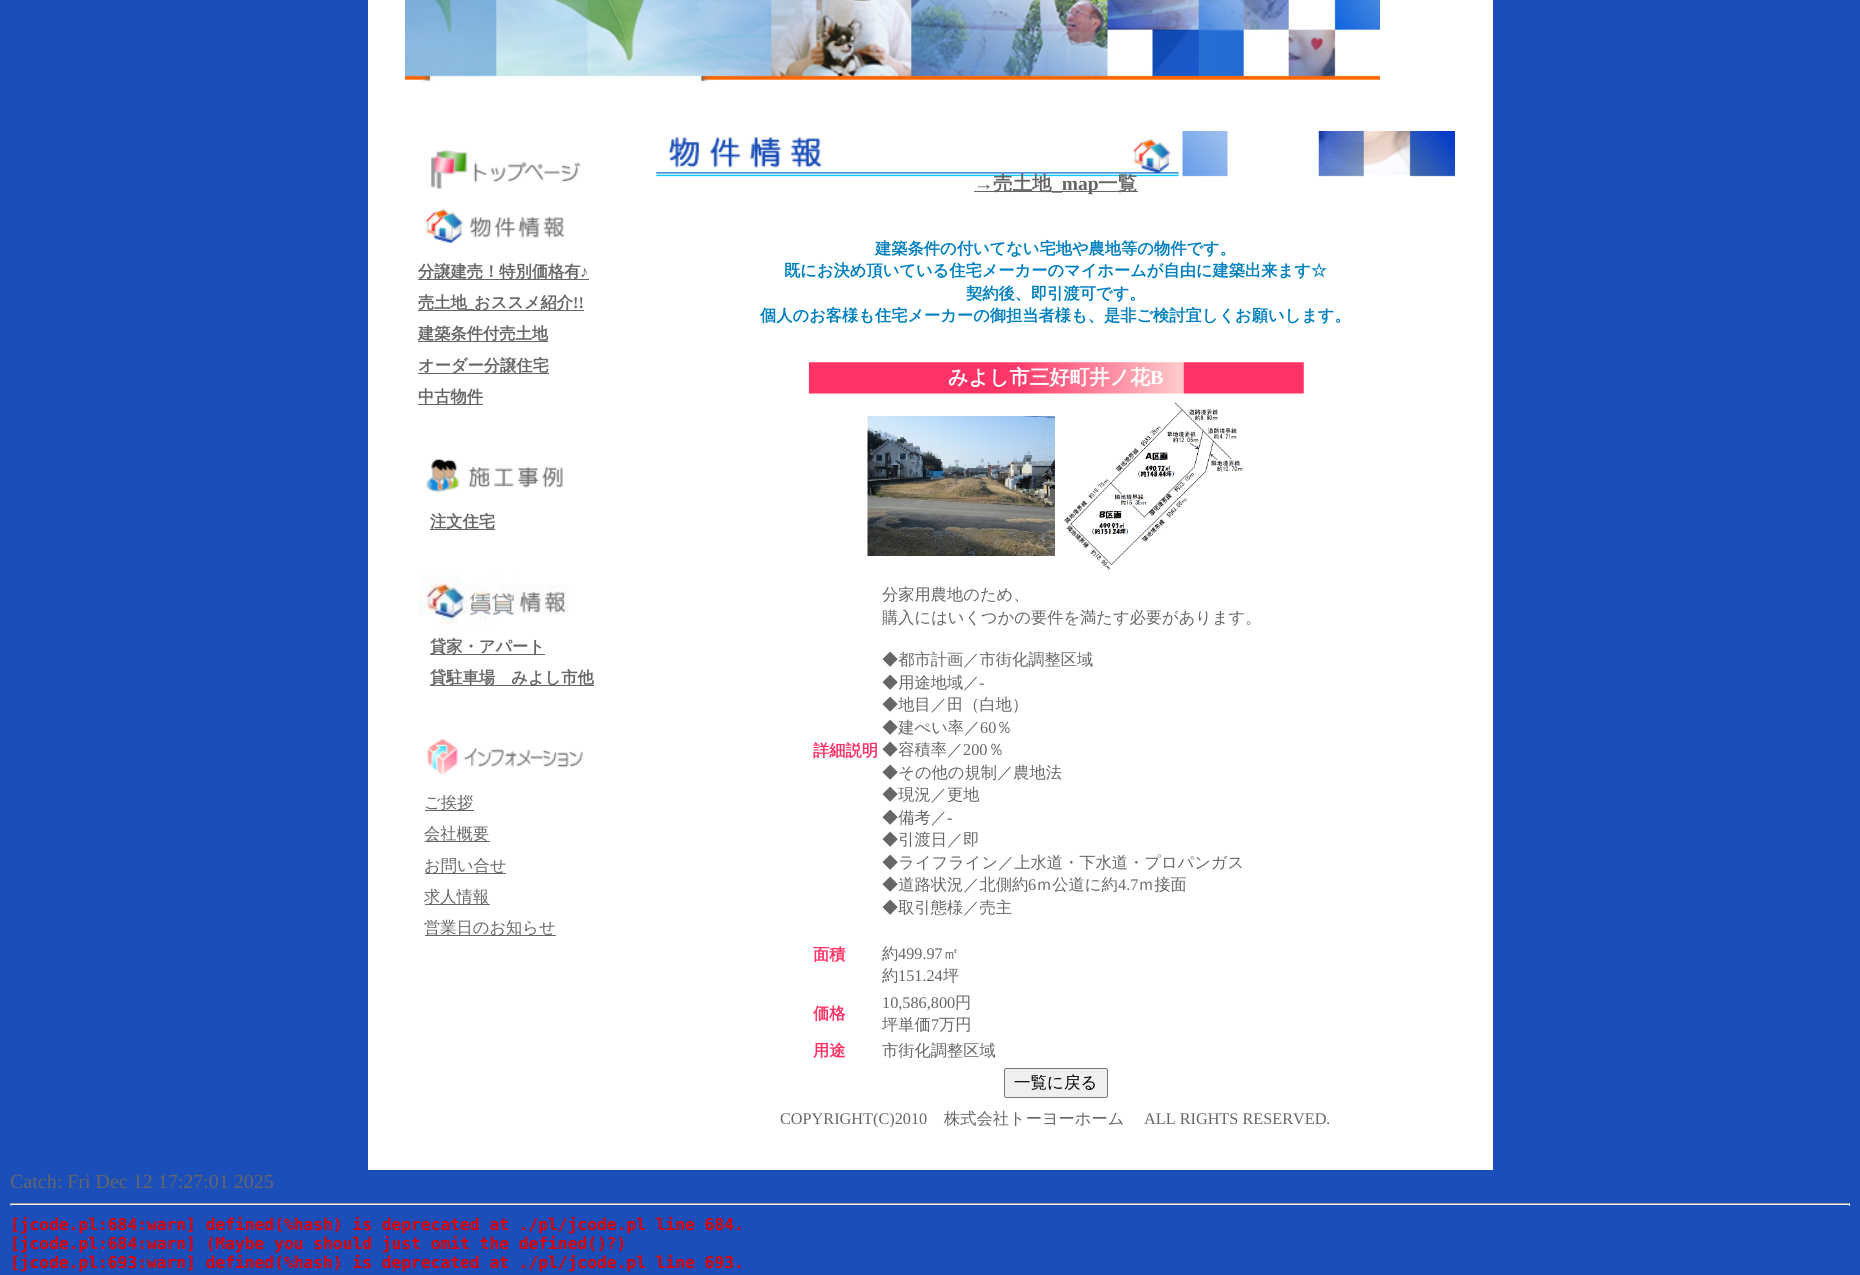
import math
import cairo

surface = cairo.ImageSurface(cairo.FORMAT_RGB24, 1860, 1275)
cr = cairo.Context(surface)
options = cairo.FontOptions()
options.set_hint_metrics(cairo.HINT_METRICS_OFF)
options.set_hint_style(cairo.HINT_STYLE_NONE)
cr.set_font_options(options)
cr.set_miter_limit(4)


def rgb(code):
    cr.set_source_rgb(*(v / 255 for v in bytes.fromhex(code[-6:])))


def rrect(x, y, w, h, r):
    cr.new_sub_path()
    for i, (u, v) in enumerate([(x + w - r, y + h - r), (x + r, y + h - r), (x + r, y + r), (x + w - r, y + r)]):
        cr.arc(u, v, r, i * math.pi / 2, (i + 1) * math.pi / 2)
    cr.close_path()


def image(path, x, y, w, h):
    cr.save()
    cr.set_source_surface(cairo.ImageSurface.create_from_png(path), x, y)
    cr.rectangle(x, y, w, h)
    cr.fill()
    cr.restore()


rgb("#1b4eb8")
cr.paint()
rgb("#ffffff")
cr.rectangle(368, 0, 1125, 1170)
cr.fill()
image("img/1.png", 405, 0, 975, 81)
image("img/2.png", 431, 149, 150, 40)
image("img/3.png", 426, 208, 138, 36)
for x, y, w, h, color in [
    (418, 279, 171, 1, "#666666"),
    (418, 310, 166, 1, "#666666"),
    (418, 341, 130, 1, "#666666"),
    (418, 373, 131, 1, "#666666"),
    (418, 404, 65, 1, "#666666"),
]:
    rgb(color)
    cr.rectangle(x, y, w, h)
    cr.fill()
image("img/4.png", 426, 459, 137, 34)
cr.rectangle(430, 529, 65, 1)
cr.fill()
image("img/5.png", 418, 575, 151, 50)
cr.rectangle(430, 654, 115, 1)
cr.fill()
cr.rectangle(430, 685, 164, 1)
cr.fill()
image("img/6.png", 427, 738, 156, 38)
for x, y, w, h, color in [
    (425, 810, 49, 1, "#666666"),
    (425, 841, 65, 1, "#666666"),
    (425, 873, 81, 1, "#666666"),
    (425, 904, 65, 1, "#666666"),
    (425, 935, 131, 1, "#666666"),
]:
    rgb(color)
    cr.rectangle(x, y, w, h)
    cr.fill()
image("img/7.png", 656, 131, 799, 46)
cr.rectangle(974, 191, 164, 1)
cr.fill()
image("img/8.png", 808, 362, 496, 32)
image("img/9.png", 867, 416, 188, 140)
image("img/10.png", 1064, 402, 179, 169)
rgb("#efefef")
rrect(1004.5, 1068.5, 103, 29, 2)
cr.fill_preserve()
rgb("#767676")
cr.set_line_width(1)
cr.stroke()
for x, y, w, h, color in [
    (10, 1203, 1840, 1, "#9f9f9f"),
    (1849, 1203, 1, 3, "#eeeeee"),
    (10, 1204, 1840, 1, "#eeeeee"),
    (10, 1203, 1, 3, "#9f9f9f"),
]:
    rgb(color)
    cr.rectangle(x, y, w, h)
    cr.fill()
cr.select_font_face("WenQuanYi Zen Hei", cairo.FONT_SLANT_NORMAL, cairo.FONT_WEIGHT_BOLD)
cr.set_font_size(16.25)
rgb("#666666")
cr.move_to(418, 277)
cr.show_text("分譲建売！特別価格有")
cr.select_font_face("Liberation Serif", cairo.FONT_SLANT_NORMAL, cairo.FONT_WEIGHT_BOLD)
cr.move_to(580, 277)
cr.show_text("♪")
cr.select_font_face("WenQuanYi Zen Hei", cairo.FONT_SLANT_NORMAL, cairo.FONT_WEIGHT_BOLD)
cr.move_to(418, 308)
cr.show_text("売土地")
cr.move_to(474, 308)
cr.show_text("おススメ紹介")
cr.select_font_face("Liberation Serif", cairo.FONT_SLANT_NORMAL, cairo.FONT_WEIGHT_BOLD)
cr.move_to(573, 308)
cr.show_text("!!")
cr.move_to(466, 308)
cr.show_text("_")
cr.select_font_face("WenQuanYi Zen Hei", cairo.FONT_SLANT_NORMAL, cairo.FONT_WEIGHT_BOLD)
for x, y, s in [
    (418, 339, "建築条件付売土地"),
    (418, 371, "オーダー分譲住宅"),
    (418, 402, "中古物件"),
    (430, 527, "注文住宅"),
    (430, 652, "貸家・アパート"),
    (430, 683, "貸駐車場　みよし市他"),
]:
    cr.move_to(x, y)
    cr.show_text(s)
cr.select_font_face("WenQuanYi Zen Hei Medium")
for x, y, s in [
    (424, 808, "ご挨拶"),
    (424, 839, "会社概要"),
    (424, 871, "お問い合せ"),
    (424, 902, "求人情報"),
    (424, 933, "営業日のお知らせ"),
]:
    cr.move_to(x, y)
    cr.show_text(s)
cr.select_font_face("Liberation Serif", cairo.FONT_SLANT_NORMAL, cairo.FONT_WEIGHT_BOLD)
cr.set_font_size(19.5)
cr.move_to(974, 190)
cr.show_text("→")
cr.select_font_face("WenQuanYi Zen Hei", cairo.FONT_SLANT_NORMAL, cairo.FONT_WEIGHT_BOLD)
cr.move_to(993, 190)
cr.show_text("売土地")
cr.select_font_face("Liberation Serif", cairo.FONT_SLANT_NORMAL, cairo.FONT_WEIGHT_BOLD)
cr.move_to(1052, 190)
cr.show_text("_map")
cr.select_font_face("WenQuanYi Zen Hei", cairo.FONT_SLANT_NORMAL, cairo.FONT_WEIGHT_BOLD)
cr.move_to(1098, 190)
cr.show_text("一覧")
cr.set_font_size(16.25)
rgb("#0080c0")
for x, y, s in [
    (875, 254, "建築条件の付いてない宅地や農地等の物件です。"),
    (784, 276, "既にお決め頂いている住宅メーカーのマイホームが自由に建築出来ます☆"),
    (966, 299, "契約後、即引渡可です。"),
    (760, 321, "個人のお客様も住宅メーカーの御担当者様も、是非ご検討宜しくお願いします。"),
]:
    cr.move_to(x, y)
    cr.show_text(s)
cr.set_font_size(20)
rgb("#ffffff")
cr.move_to(948, 384)
cr.show_text("みよし市三好町井ノ花")
cr.select_font_face("Liberation Serif", cairo.FONT_SLANT_NORMAL, cairo.FONT_WEIGHT_BOLD)
cr.move_to(1150, 384)
cr.show_text("B")
cr.select_font_face("WenQuanYi Zen Hei", cairo.FONT_SLANT_NORMAL, cairo.FONT_WEIGHT_BOLD)
cr.set_font_size(16.25)
rgb("#ff3366")
cr.move_to(813, 756)
cr.show_text("詳細説明")
cr.select_font_face("WenQuanYi Zen Hei Medium")
rgb("#666666")
for x, y, s in [
    (882, 600, "分家用農地のため、"),
    (882, 623, "購入にはいくつかの要件を満たす必要があります。"),
    (882, 665, "◆都市計画／市街化調整区域"),
    (882, 688, "◆用途地域／"),
]:
    cr.move_to(x, y)
    cr.show_text(s)
cr.select_font_face("Liberation Serif")
cr.move_to(979, 688)
cr.show_text("-")
cr.select_font_face("WenQuanYi Zen Hei Medium")
cr.move_to(882, 710)
cr.show_text("◆地目／田（白地）")
cr.move_to(882, 733)
cr.show_text("◆建ぺい率／")
cr.select_font_face("Liberation Serif")
cr.move_to(980, 733)
cr.show_text("60")
cr.select_font_face("WenQuanYi Zen Hei Medium")
cr.move_to(996, 733)
cr.show_text("％")
cr.move_to(882, 755)
cr.show_text("◆容積率／")
cr.select_font_face("Liberation Serif")
cr.move_to(963, 755)
cr.show_text("200")
cr.select_font_face("WenQuanYi Zen Hei Medium")
for x, y, s in [
    (988, 755, "％"),
    (882, 778, "◆その他の規制／農地法"),
    (882, 800, "◆現況／更地"),
    (882, 823, "◆備考／"),
]:
    cr.move_to(x, y)
    cr.show_text(s)
cr.select_font_face("Liberation Serif")
cr.move_to(947, 823)
cr.show_text("-")
cr.select_font_face("WenQuanYi Zen Hei Medium")
for x, y, s in [
    (882, 845, "◆引渡日／即"),
    (882, 868, "◆ライフライン／上水道・下水道・プロパンガス"),
    (882, 890, "◆道路状況／北側約"),
]:
    cr.move_to(x, y)
    cr.show_text(s)
cr.select_font_face("Liberation Serif")
cr.move_to(1028, 890)
cr.show_text("6")
cr.select_font_face("WenQuanYi Zen Hei Medium")
cr.move_to(1036, 890)
cr.show_text("ｍ公道に約")
cr.select_font_face("Liberation Serif")
cr.move_to(1118, 890)
cr.show_text("4.7")
cr.select_font_face("WenQuanYi Zen Hei Medium")
cr.move_to(1138, 890)
cr.show_text("ｍ接面")
cr.move_to(882, 913)
cr.show_text("◆取引態様／売主")
cr.select_font_face("WenQuanYi Zen Hei", cairo.FONT_SLANT_NORMAL, cairo.FONT_WEIGHT_BOLD)
rgb("#ff3366")
cr.move_to(813, 960)
cr.show_text("面積")
cr.select_font_face("WenQuanYi Zen Hei Medium")
rgb("#666666")
cr.move_to(882, 959)
cr.show_text("約")
cr.select_font_face("Liberation Serif")
cr.move_to(898, 959)
cr.show_text("499.97")
cr.select_font_face("WenQuanYi Zen Hei Medium")
cr.move_to(943, 959)
cr.show_text("㎡")
cr.move_to(882, 981)
cr.show_text("約")
cr.select_font_face("Liberation Serif")
cr.move_to(898, 981)
cr.show_text("151.24")
cr.select_font_face("WenQuanYi Zen Hei Medium")
cr.move_to(943, 981)
cr.show_text("坪")
cr.select_font_face("WenQuanYi Zen Hei", cairo.FONT_SLANT_NORMAL, cairo.FONT_WEIGHT_BOLD)
rgb("#ff3366")
cr.move_to(813, 1019)
cr.show_text("価格")
cr.select_font_face("Liberation Serif")
rgb("#666666")
cr.move_to(882, 1008)
cr.show_text("10,586,800")
cr.select_font_face("WenQuanYi Zen Hei Medium")
cr.move_to(955, 1008)
cr.show_text("円")
cr.move_to(882, 1030)
cr.show_text("坪単価")
cr.select_font_face("Liberation Serif")
cr.move_to(931, 1030)
cr.show_text("7")
cr.select_font_face("WenQuanYi Zen Hei Medium")
cr.move_to(939, 1030)
cr.show_text("万円")
cr.select_font_face("WenQuanYi Zen Hei", cairo.FONT_SLANT_NORMAL, cairo.FONT_WEIGHT_BOLD)
rgb("#ff3366")
cr.move_to(813, 1056)
cr.show_text("用途")
cr.select_font_face("WenQuanYi Zen Hei Medium")
rgb("#666666")
cr.move_to(882, 1056)
cr.show_text("市街化調整区域")
cr.set_font_size(16.5)
rgb("#000000")
cr.move_to(1014, 1088)
cr.show_text("一覧に戻る")
cr.select_font_face("Liberation Serif")
cr.set_font_size(16.25)
rgb("#666666")
cr.move_to(780, 1124)
cr.show_text("COPYRIGHT(C)2010")
cr.select_font_face("WenQuanYi Zen Hei Medium")
cr.move_to(944, 1124)
cr.show_text("株式会社トーヨーホーム")
cr.select_font_face("Liberation Serif")
cr.move_to(1144, 1124)
cr.show_text("ALL RIGHTS RESERVED.")
cr.set_font_size(20)
cr.move_to(10, 1188)
cr.show_text("Catch: Fri Dec 12 17:27:01 2025")
cr.select_font_face("DejaVu Sans Mono", cairo.FONT_SLANT_NORMAL, cairo.FONT_WEIGHT_BOLD)
cr.set_font_size(16.25)
rgb("#e00000")
for x, y, s in [
    (10, 1230, "[jcode.pl:684:warn] defined(%hash) is deprecated at ./pl/jcode.pl line 684."),
    (10, 1249, "[jcode.pl:684:warn] (Maybe you should just omit the defined()?)"),
    (10, 1268, "[jcode.pl:693:warn] defined(%hash) is deprecated at ./pl/jcode.pl line 693."),
]:
    cr.move_to(x, y)
    cr.show_text(s)
surface.write_to_png("page.png")
